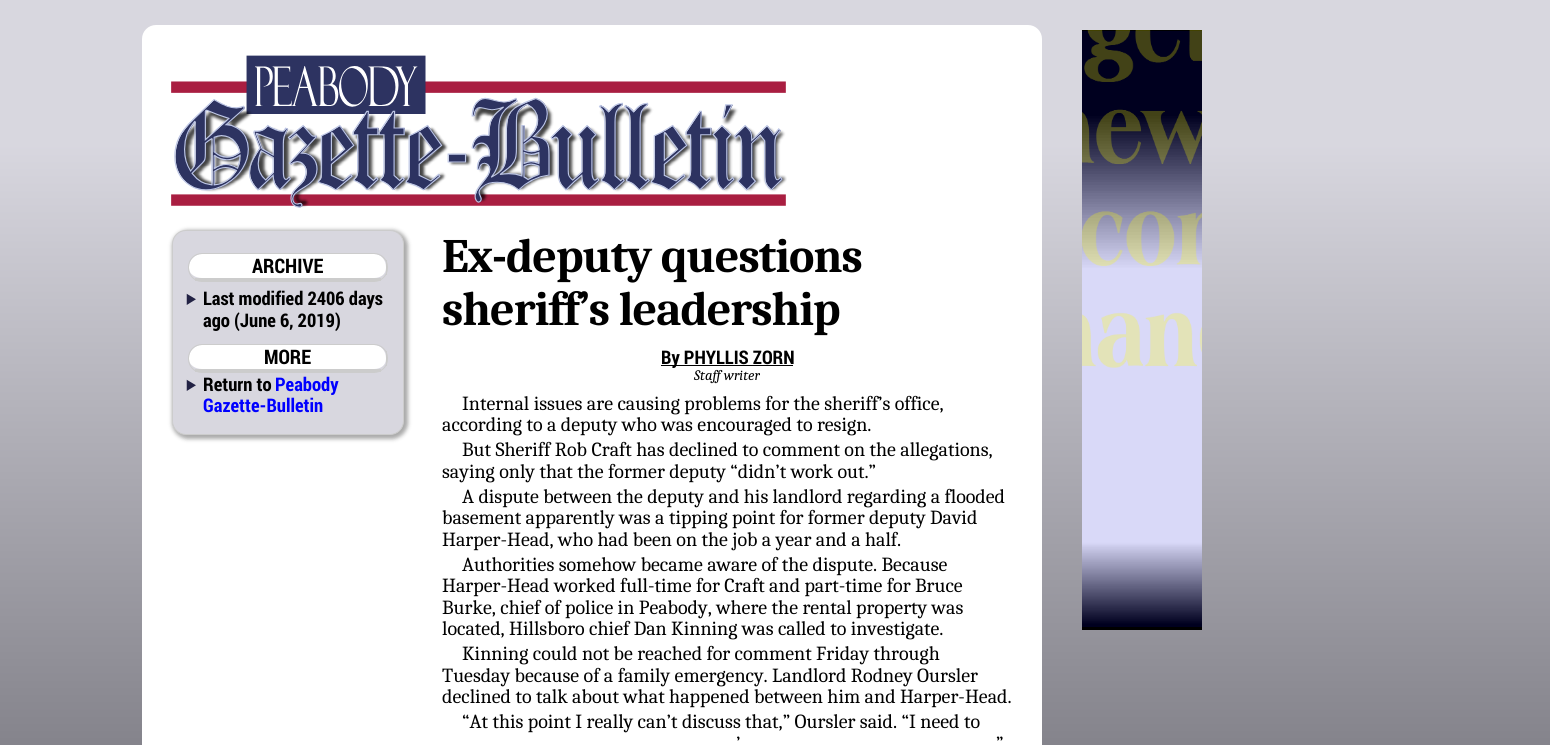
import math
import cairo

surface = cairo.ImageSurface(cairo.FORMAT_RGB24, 1550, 745)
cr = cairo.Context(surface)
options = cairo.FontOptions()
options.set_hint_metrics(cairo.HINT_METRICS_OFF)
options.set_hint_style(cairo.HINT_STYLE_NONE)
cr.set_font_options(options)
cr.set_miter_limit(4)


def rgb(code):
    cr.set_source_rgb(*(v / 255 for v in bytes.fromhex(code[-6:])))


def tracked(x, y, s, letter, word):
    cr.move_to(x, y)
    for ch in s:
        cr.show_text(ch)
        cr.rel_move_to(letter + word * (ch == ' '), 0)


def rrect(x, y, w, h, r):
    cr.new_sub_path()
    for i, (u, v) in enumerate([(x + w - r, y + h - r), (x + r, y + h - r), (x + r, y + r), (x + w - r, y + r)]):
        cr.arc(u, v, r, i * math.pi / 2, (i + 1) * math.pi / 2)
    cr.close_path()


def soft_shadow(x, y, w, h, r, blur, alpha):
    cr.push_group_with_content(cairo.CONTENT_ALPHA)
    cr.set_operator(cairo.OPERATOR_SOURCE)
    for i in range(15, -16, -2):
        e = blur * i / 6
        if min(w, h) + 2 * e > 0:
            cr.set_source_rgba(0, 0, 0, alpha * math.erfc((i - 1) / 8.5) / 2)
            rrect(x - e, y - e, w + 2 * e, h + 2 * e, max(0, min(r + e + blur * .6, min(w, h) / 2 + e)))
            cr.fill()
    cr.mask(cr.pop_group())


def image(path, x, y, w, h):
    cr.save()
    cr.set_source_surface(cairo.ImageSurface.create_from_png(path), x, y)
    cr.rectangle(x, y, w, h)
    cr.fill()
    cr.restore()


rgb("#ffffff")
cr.paint()
gradient = cairo.LinearGradient(1280, 0, 1280, 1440)
gradient.add_color_stop_rgba(0.1, 0.847, 0.843, 0.875, 1)
gradient.add_color_stop_rgba(0.9, 0.22, 0.216, 0.247, 1)
cr.set_source(gradient)
cr.rectangle(0, 0, 1550, 745)
cr.fill()
rgb("#ffffff")
rrect(142, 25, 900, 270, 14)
cr.fill()
image("img/1.png", 171, 55, 616, 153)
rrect(142, 220, 900, 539, 14)
cr.fill()
rgb("#aaaaaa")
soft_shadow(172, 230, 236, 209, 16, 2, 1)
rgb("#d8d7df")
rrect(172.5, 230.5, 231, 204, 13.5)
cr.fill_preserve()
rgb("#cccccc")
cr.set_line_width(1)
cr.stroke()
rgb("#ffffff")
cr.new_path()
cr.move_to(202, 254)
cr.line_to(374, 254)
cr.curve_to(381, 254, 386, 260, 386, 267)
cr.line_to(386, 268)
cr.curve_to(386, 274, 381, 278, 374, 278)
cr.line_to(202, 278)
cr.curve_to(195, 278, 189, 274, 189, 268)
cr.line_to(189, 267)
cr.curve_to(189, 260, 195, 254, 202, 254)
cr.close_path()
cr.fill()
rrect(188.5, 253.5, 199, 28, 13.5)
rgb("#cccccc")
cr.stroke()
cr.rectangle(386, 260, 1, 15)
cr.fill()
cr.rectangle(195, 278, 186, 3)
cr.fill()
image("img/2.png", 186, 293, 10, 12)
rgb("#ffffff")
cr.new_path()
cr.move_to(202, 345)
cr.line_to(374, 345)
cr.curve_to(381, 345, 386, 351, 386, 358)
cr.line_to(386, 359)
cr.curve_to(386, 365, 381, 369, 374, 369)
cr.line_to(202, 369)
cr.curve_to(195, 369, 189, 365, 189, 359)
cr.line_to(189, 358)
cr.curve_to(189, 351, 195, 345, 202, 345)
cr.close_path()
cr.fill()
rrect(188.5, 344.5, 199, 28, 13.5)
rgb("#cccccc")
cr.stroke()
cr.rectangle(386, 351, 1, 15)
cr.fill()
cr.rectangle(195, 369, 186, 3)
cr.fill()
image("img/2.png", 186, 379, 10, 12)
rgb("#000000")
cr.rectangle(661, 365, 132, 1)
cr.fill()
image("img/3.png", 1082, 30, 120, 600)
cr.select_font_face("Roboto Condensed", cairo.FONT_SLANT_NORMAL, cairo.FONT_WEIGHT_BOLD)
cr.set_font_size(20)
cr.move_to(252, 273)
cr.show_text("ARCHIVE")
cr.set_font_size(18.75)
cr.move_to(203, 305)
cr.show_text("Last modified 2406 days")
cr.move_to(203, 327)
cr.show_text("ago (June 6, 2019)")
cr.set_font_size(20)
cr.move_to(264, 364)
cr.show_text("MORE")
cr.set_font_size(18.75)
cr.move_to(203, 391)
cr.show_text("Return to")
rgb("#0000ff")
cr.move_to(275, 391)
cr.show_text("Peabody")
cr.move_to(203, 412)
cr.show_text("Gazette-Bulletin")
cr.select_font_face("Caladea", cairo.FONT_SLANT_NORMAL, cairo.FONT_WEIGHT_BOLD)
cr.set_font_size(48)
rgb("#000000")
tracked(442, 272, "Ex-deputy questions", -1, 0)
tracked(442, 325, "sheriff’s leadership", -1, 0)
cr.select_font_face("Roboto Condensed", cairo.FONT_SLANT_NORMAL, cairo.FONT_WEIGHT_BOLD)
cr.set_font_size(18.75)
cr.move_to(661, 364)
cr.show_text("By PHYLLIS ZORN")
cr.select_font_face("Caladea", cairo.FONT_SLANT_ITALIC)
cr.set_font_size(14.5)
cr.move_to(694, 380)
cr.show_text("Staff writer")
cr.select_font_face("Caladea")
cr.set_font_size(20)
for x, y, s in [
    (462, 410, "Internal issues are causing problems for the sheriff’s office,"),
    (442, 431, "according to a deputy who was encouraged to resign."),
    (462, 456, "But Sheriff Rob Craft has declined to comment on the allegations,"),
    (442, 478, "saying only that the former deputy “didn’t work out.”"),
    (462, 503, "A dispute between the deputy and his landlord regarding a flooded"),
    (442, 524, "basement apparently was a tipping point for former deputy David"),
    (442, 546, "Harper-Head, who had been on the job a year and a half."),
    (462, 571, "Authorities somehow became aware of the dispute. Because"),
    (442, 592, "Harper-Head worked full-time for Craft and part-time for Bruce"),
    (442, 614, "Burke, chief of police in Peabody, where the rental property was"),
    (442, 635, "located, Hillsboro chief Dan Kinning was called to investigate."),
    (462, 660, "Kinning could not be reached for comment Friday through"),
    (442, 682, "Tuesday because of a family emergency. Landlord Rodney Oursler"),
    (442, 703, "declined to talk about what happened between him and Harper-Head."),
    (462, 728, "“At this point I really can’t discuss that,” Oursler said. “I need to"),
    (736, 750, "’"),
    (996, 750, "”"),
]:
    cr.move_to(x, y)
    cr.show_text(s)
surface.write_to_png("page.png")
